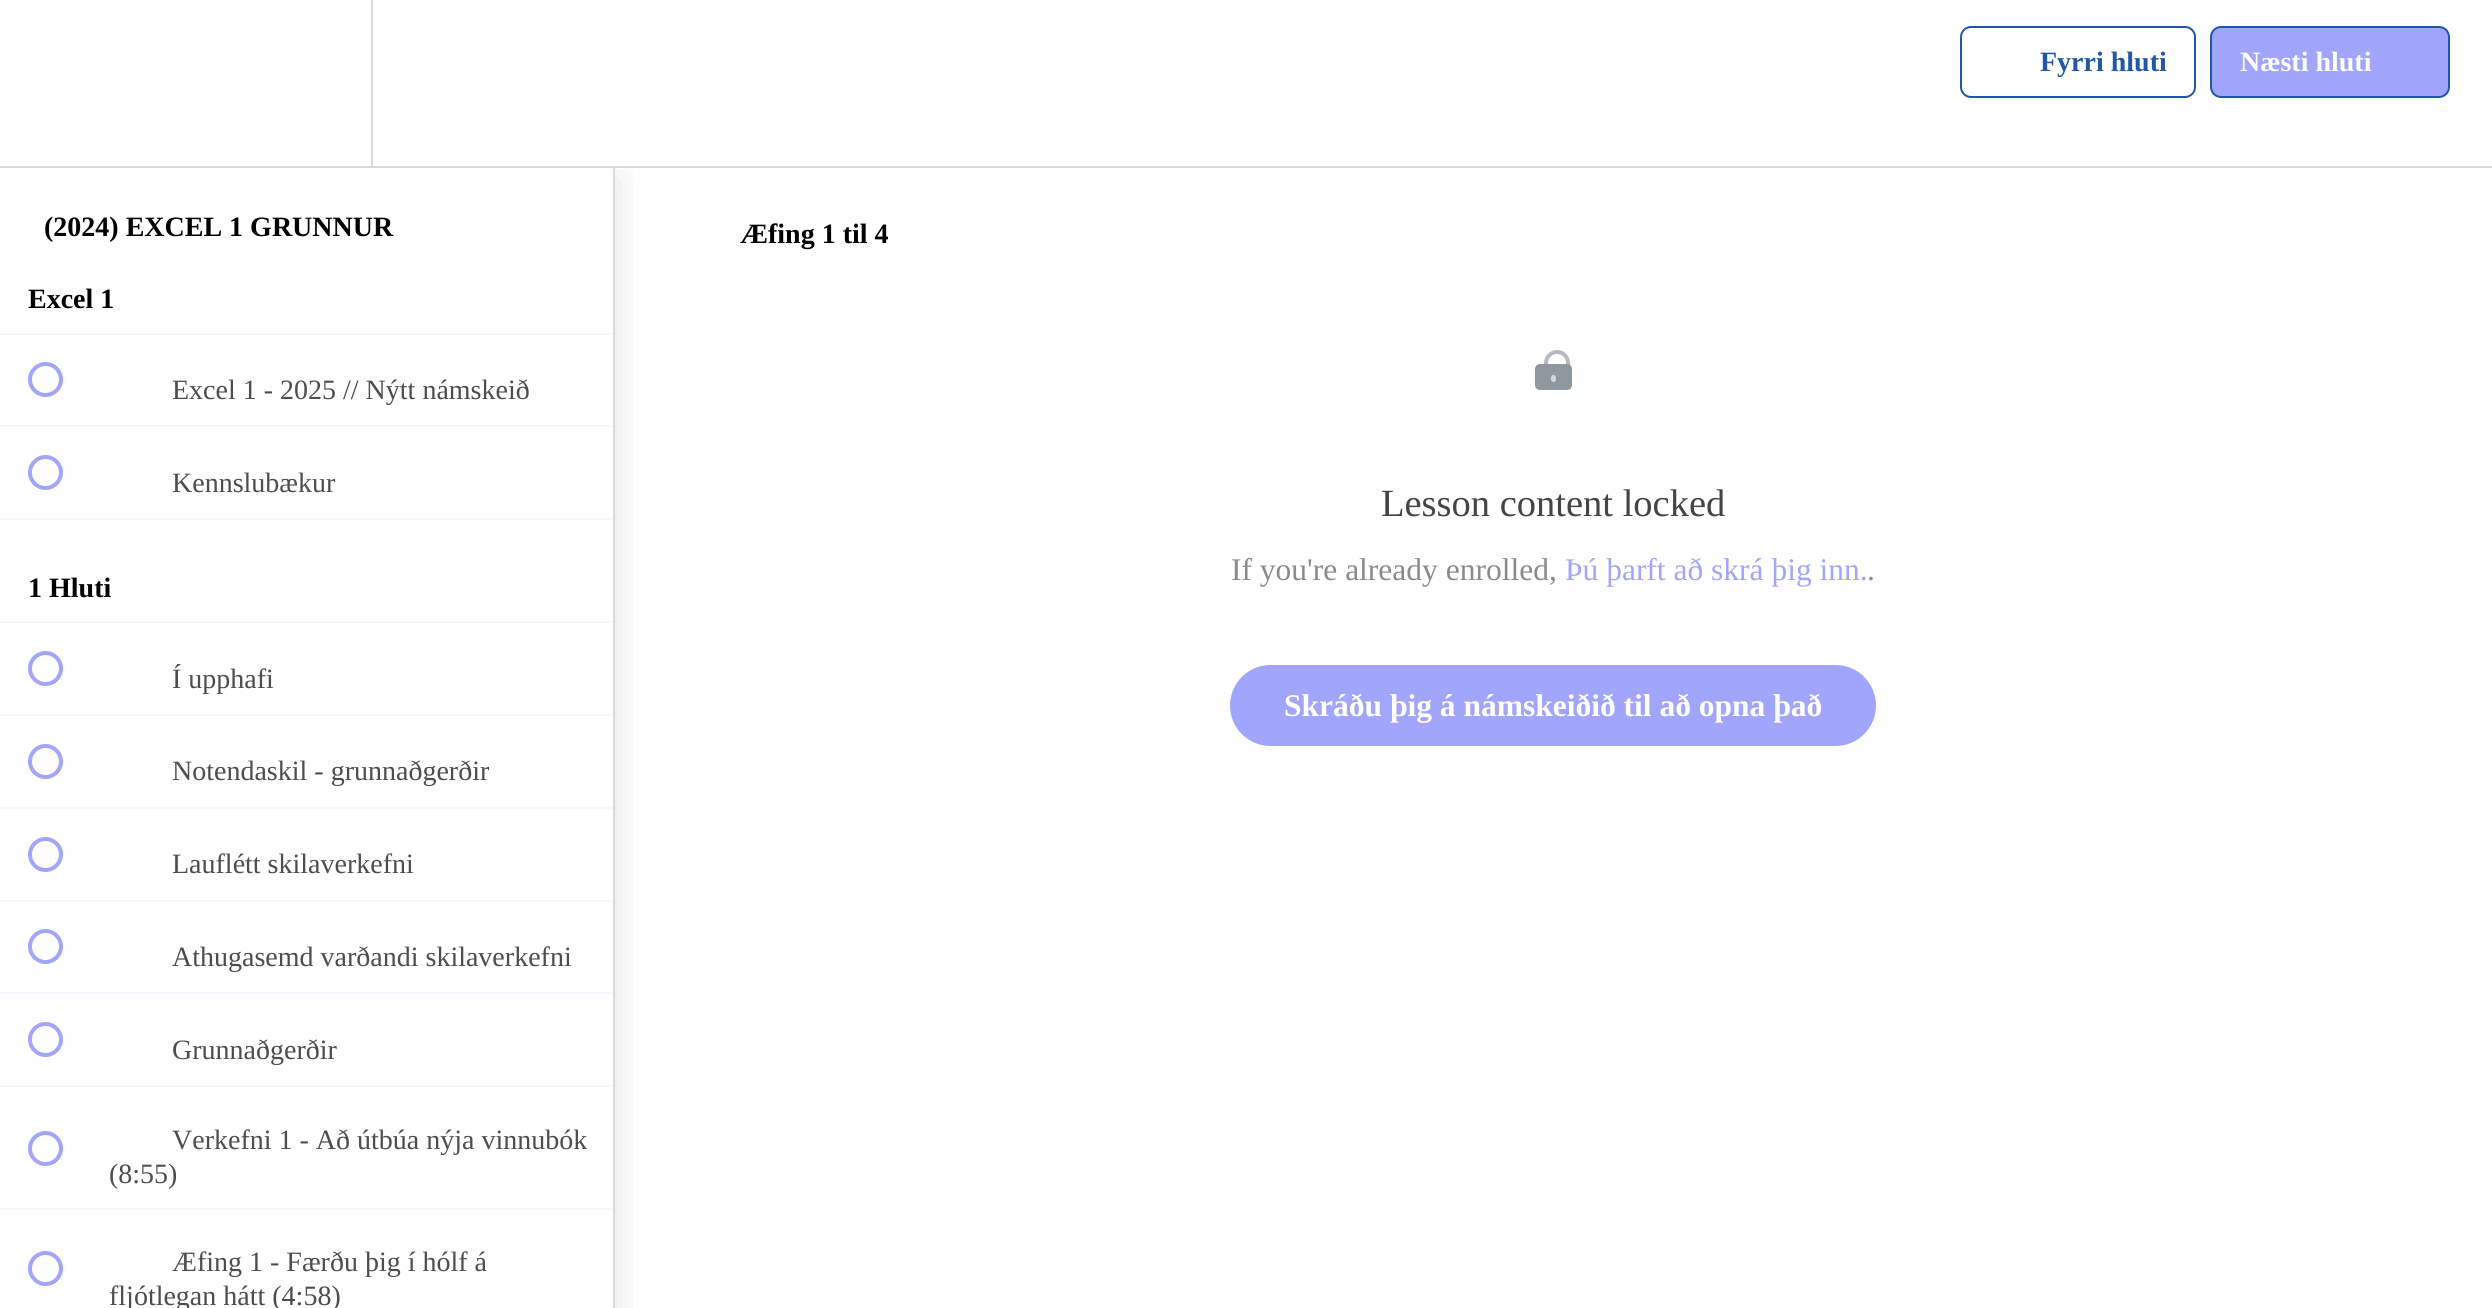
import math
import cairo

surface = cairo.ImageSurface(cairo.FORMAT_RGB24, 2492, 1308)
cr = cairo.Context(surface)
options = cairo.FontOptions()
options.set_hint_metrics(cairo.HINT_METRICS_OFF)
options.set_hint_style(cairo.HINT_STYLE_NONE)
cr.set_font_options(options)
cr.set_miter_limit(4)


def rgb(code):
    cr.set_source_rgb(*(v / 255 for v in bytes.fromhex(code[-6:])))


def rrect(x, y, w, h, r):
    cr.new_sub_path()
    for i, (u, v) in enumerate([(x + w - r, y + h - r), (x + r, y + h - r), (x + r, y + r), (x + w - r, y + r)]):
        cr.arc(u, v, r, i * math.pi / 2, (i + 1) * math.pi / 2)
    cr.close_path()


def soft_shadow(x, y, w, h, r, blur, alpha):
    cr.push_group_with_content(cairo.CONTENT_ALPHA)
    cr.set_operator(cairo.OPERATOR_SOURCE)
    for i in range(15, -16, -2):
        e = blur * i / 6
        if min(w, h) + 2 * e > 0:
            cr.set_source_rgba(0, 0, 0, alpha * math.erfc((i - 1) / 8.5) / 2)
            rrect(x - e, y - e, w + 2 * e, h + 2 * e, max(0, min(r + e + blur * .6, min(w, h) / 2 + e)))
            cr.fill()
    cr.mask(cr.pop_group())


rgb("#ffffff")
cr.paint()
cr.save()
cr.rectangle(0, 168, 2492, 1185)
cr.clip()
cr.rectangle(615, 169, 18, 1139)
cr.clip()
rgb("#20272d")
soft_shadow(0, 179, 614, 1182, 0, 17.5, 0.15)
cr.restore()
rgb("#d7dadb")
cr.rectangle(0, 166, 2492, 2)
cr.fill()
cr.rectangle(371, 0, 2, 166)
cr.fill()
rrect(1961, 27, 234, 70, 10)
rgb("#2057a8")
cr.stroke()
rgb("#a1a5fc")
rrect(2211, 27, 238, 70, 10)
cr.fill_preserve()
rgb("#2057a8")
cr.stroke()
for x, y, w, h, color in [
    (613, 168, 2, 1140, "#d7dadb"),
    (0, 333, 613, 2, "#f6f6ff"),
    (0, 425, 613, 2, "#f6f6ff"),
]:
    rgb(color)
    cr.rectangle(x, y, w, h)
    cr.fill()
cr.arc(45.5, 379.5, 15.5, 0, 2 * math.pi)
rgb("#a1a5fc")
cr.set_line_width(4)
cr.stroke()
rgb("#f6f6ff")
cr.rectangle(0, 518, 613, 2)
cr.fill()
cr.arc(45.5, 472.5, 15.5, 0, 2 * math.pi)
rgb("#a1a5fc")
cr.stroke()
rgb("#f6f6ff")
cr.rectangle(0, 621, 613, 2)
cr.fill()
cr.rectangle(0, 714, 613, 2)
cr.fill()
cr.arc(45.5, 668.5, 15.5, 0, 2 * math.pi)
rgb("#a1a5fc")
cr.stroke()
rgb("#f6f6ff")
cr.rectangle(0, 807, 613, 2)
cr.fill()
cr.arc(45.5, 761.5, 15.5, 0, 2 * math.pi)
rgb("#a1a5fc")
cr.stroke()
rgb("#f6f6ff")
cr.rectangle(0, 900, 613, 2)
cr.fill()
cr.arc(45.5, 854.5, 15.5, 0, 2 * math.pi)
rgb("#a1a5fc")
cr.stroke()
rgb("#f6f6ff")
cr.rectangle(0, 992, 613, 2)
cr.fill()
cr.arc(45.5, 946.5, 15.5, 0, 2 * math.pi)
rgb("#a1a5fc")
cr.stroke()
rgb("#f6f6ff")
cr.rectangle(0, 1085, 613, 2)
cr.fill()
cr.arc(45.5, 1039.5, 15.5, 0, 2 * math.pi)
rgb("#a1a5fc")
cr.stroke()
rgb("#f6f6ff")
cr.rectangle(0, 1208, 613, 2)
cr.fill()
cr.arc(45.5, 1148.5, 15.5, 0, 2 * math.pi)
rgb("#a1a5fc")
cr.stroke()
cr.arc(45.5, 1268.5, 15.5, 0, 2 * math.pi)
cr.stroke()
rrect(1546, 352, 22, 35, 11)
rgb("#b5babf")
cr.stroke()
rgb("#8f989f")
rrect(1535, 364, 37, 26, 5)
cr.fill()
rgb("#d3d7dc")
rrect(1551, 375, 5, 7, 2.5)
cr.fill()
rgb("#a1a5fc")
rrect(1231, 666, 644, 79, 39.5)
cr.fill_preserve()
cr.set_line_width(2)
cr.stroke()
cr.select_font_face("Liberation Serif", cairo.FONT_SLANT_NORMAL, cairo.FONT_WEIGHT_BOLD)
cr.set_font_size(28)
rgb("#2057a8")
cr.move_to(2040, 71)
cr.show_text("Fyrri hluti")
rgb("#ffffff")
cr.move_to(2240, 71)
cr.show_text("Næsti hluti")
rgb("#000000")
cr.move_to(44, 236)
cr.show_text("(2024) EXCEL 1 GRUNNUR")
cr.move_to(28, 308)
cr.show_text("Excel 1")
cr.select_font_face("Liberation Serif")
rgb("#4d4d4d")
cr.move_to(172, 399)
cr.show_text("Excel 1 - 2025 // Nýtt námskeið")
cr.move_to(172, 492)
cr.show_text("Kennslubækur")
cr.select_font_face("Liberation Serif", cairo.FONT_SLANT_NORMAL, cairo.FONT_WEIGHT_BOLD)
rgb("#000000")
cr.move_to(28, 597)
cr.show_text("1 Hluti")
cr.select_font_face("Liberation Serif")
rgb("#4d4d4d")
for x, y, s in [
    (172, 688, "Í upphafi"),
    (172, 780, "Notendaskil - grunnaðgerðir"),
    (172, 873, "Lauflétt skilaverkefni"),
    (172, 966, "Athugasemd varðandi skilaverkefni"),
    (172, 1059, "Grunnaðgerðir"),
    (172, 1149, "Verkefni 1 - Að útbúa nýja vinnubók"),
    (109, 1183, "(8:55)"),
    (172, 1271, "Æfing 1 - Færðu þig í hólf á"),
    (109, 1305, "fljótlegan hátt (4:58)"),
]:
    cr.move_to(x, y)
    cr.show_text(s)
cr.select_font_face("Liberation Serif", cairo.FONT_SLANT_NORMAL, cairo.FONT_WEIGHT_BOLD)
rgb("#000000")
cr.move_to(740, 243)
cr.show_text("Æfing 1 til 4")
cr.select_font_face("Liberation Serif")
cr.set_font_size(38.5)
rgb("#454545")
cr.move_to(1381, 516)
cr.show_text("Lesson content locked")
cr.set_font_size(31.5)
rgb("#8b8b8b")
cr.move_to(1231, 580)
cr.show_text("If you're already enrolled,")
rgb("#a1a5fc")
cr.move_to(1565, 580)
cr.show_text("Þú þarft að skrá þig inn.")
rgb("#8b8b8b")
cr.move_to(1867, 580)
cr.show_text(".")
cr.select_font_face("Liberation Serif", cairo.FONT_SLANT_NORMAL, cairo.FONT_WEIGHT_BOLD)
rgb("#ffffff")
cr.move_to(1284, 716)
cr.show_text("Skráðu þig á námskeiðið til að opna það")
surface.write_to_png("page.png")
